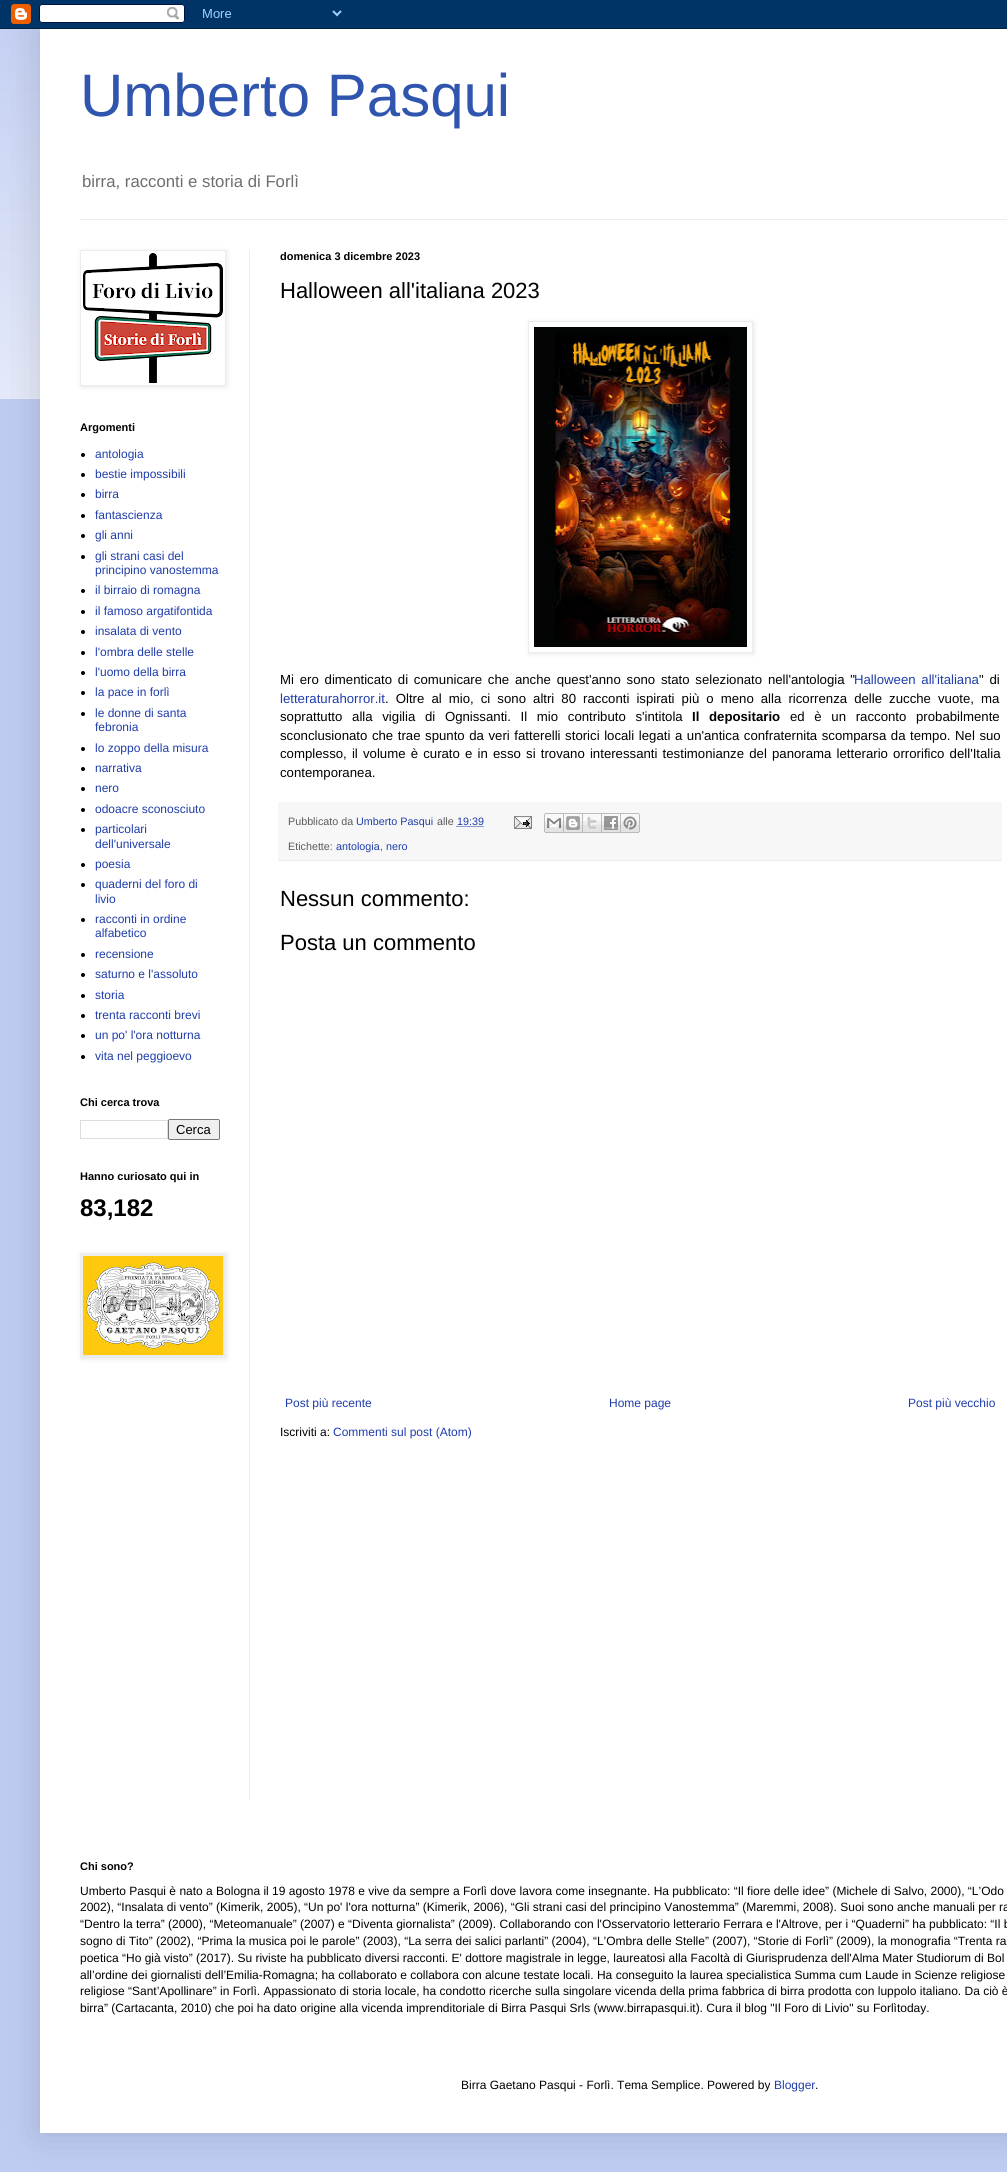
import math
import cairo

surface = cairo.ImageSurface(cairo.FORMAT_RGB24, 1007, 2172)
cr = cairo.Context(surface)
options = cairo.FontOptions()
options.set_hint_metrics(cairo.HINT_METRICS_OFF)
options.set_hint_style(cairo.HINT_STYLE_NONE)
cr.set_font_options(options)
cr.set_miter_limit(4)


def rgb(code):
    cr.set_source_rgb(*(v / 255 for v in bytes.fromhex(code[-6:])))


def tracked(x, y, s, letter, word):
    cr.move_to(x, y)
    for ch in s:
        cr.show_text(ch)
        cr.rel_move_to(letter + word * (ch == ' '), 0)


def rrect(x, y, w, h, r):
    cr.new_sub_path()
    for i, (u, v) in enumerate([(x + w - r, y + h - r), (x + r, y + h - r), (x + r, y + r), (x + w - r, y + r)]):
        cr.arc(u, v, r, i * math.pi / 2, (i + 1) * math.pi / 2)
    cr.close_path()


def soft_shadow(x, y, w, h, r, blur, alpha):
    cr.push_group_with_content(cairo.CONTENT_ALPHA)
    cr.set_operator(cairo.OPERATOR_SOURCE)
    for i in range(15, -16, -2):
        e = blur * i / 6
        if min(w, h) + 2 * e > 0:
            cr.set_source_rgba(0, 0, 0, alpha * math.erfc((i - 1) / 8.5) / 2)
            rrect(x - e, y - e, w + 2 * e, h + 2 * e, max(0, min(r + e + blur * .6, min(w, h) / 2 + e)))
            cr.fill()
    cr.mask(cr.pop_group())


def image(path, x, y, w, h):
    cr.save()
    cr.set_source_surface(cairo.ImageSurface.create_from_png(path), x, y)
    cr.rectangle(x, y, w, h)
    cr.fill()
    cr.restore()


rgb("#bfccf2")
cr.paint()
image("img/2.png", 0, 29, 40, 370)
rgb("#000000")
soft_shadow(40, 29, 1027, 2104, 0, 20, 0.15)
image("img/1.png", 0, 0, 1007, 29)
for x, y, w, h, color in [
    (40, 29, 967, 2104, "#ffffff"),
    (80, 219, 927, 1, "#ececec"),
    (249, 250, 1, 1550, "#ececec"),
]:
    rgb(color)
    cr.rectangle(x, y, w, h)
    cr.fill()
cr.save()
cr.set_fill_rule(cairo.FILL_RULE_EVEN_ODD)
cr.new_path()
cr.move_to(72, 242)
cr.line_to(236, 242)
cr.line_to(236, 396)
cr.line_to(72, 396)
cr.close_path()
cr.move_to(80, 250)
cr.line_to(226, 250)
cr.line_to(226, 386)
cr.line_to(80, 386)
cr.close_path()
cr.clip()
rgb("#000000")
soft_shadow(81, 251, 146, 136, 0, 2.5, 0.1)
cr.restore()
cr.rectangle(80.5, 250.5, 145, 135)
cr.set_line_width(1)
cr.stroke()
image("img/3.png", 83, 253, 140, 130)
rgb("#000000")
cr.arc(83, 455, 2, 0, 2 * math.pi)
cr.fill()
cr.arc(83, 475, 2, 0, 2 * math.pi)
cr.fill()
cr.arc(83, 495, 2, 0, 2 * math.pi)
cr.fill()
cr.arc(83, 516, 2, 0, 2 * math.pi)
cr.fill()
cr.arc(83, 536, 2, 0, 2 * math.pi)
cr.fill()
cr.arc(83, 557, 2, 0, 2 * math.pi)
cr.fill()
cr.arc(83, 591, 2, 0, 2 * math.pi)
cr.fill()
cr.arc(83, 612, 2, 0, 2 * math.pi)
cr.fill()
cr.arc(83, 632, 2, 0, 2 * math.pi)
cr.fill()
cr.arc(83, 653, 2, 0, 2 * math.pi)
cr.fill()
cr.arc(83, 673, 2, 0, 2 * math.pi)
cr.fill()
cr.arc(83, 693, 2, 0, 2 * math.pi)
cr.fill()
cr.arc(83, 714, 2, 0, 2 * math.pi)
cr.fill()
cr.arc(83, 749, 2, 0, 2 * math.pi)
cr.fill()
cr.arc(83, 769, 2, 0, 2 * math.pi)
cr.fill()
cr.arc(83, 789, 2, 0, 2 * math.pi)
cr.fill()
cr.arc(83, 810, 2, 0, 2 * math.pi)
cr.fill()
cr.arc(83, 830, 2, 0, 2 * math.pi)
cr.fill()
cr.arc(83, 865, 2, 0, 2 * math.pi)
cr.fill()
cr.arc(83, 885, 2, 0, 2 * math.pi)
cr.fill()
cr.arc(83, 920, 2, 0, 2 * math.pi)
cr.fill()
cr.arc(83, 955, 2, 0, 2 * math.pi)
cr.fill()
cr.arc(83, 975, 2, 0, 2 * math.pi)
cr.fill()
cr.arc(83, 996, 2, 0, 2 * math.pi)
cr.fill()
cr.arc(83, 1016, 2, 0, 2 * math.pi)
cr.fill()
cr.arc(83, 1036, 2, 0, 2 * math.pi)
cr.fill()
cr.arc(83, 1057, 2, 0, 2 * math.pi)
cr.fill()
cr.rectangle(80.5, 1120.5, 87, 18)
rgb("#dddddd")
cr.stroke()
rgb("#efefef")
rrect(168.5, 1119.5, 51, 20, 1.5)
cr.fill_preserve()
rgb("#767676")
cr.stroke()
rgb("#000000")
soft_shadow(81, 1254, 146, 105, 0, 2.5, 0.1)
cr.rectangle(80.5, 1253.5, 145, 104)
rgb("#ececec")
cr.stroke()
image("img/4.png", 83, 1256, 140, 99)
cr.save()
cr.set_fill_rule(cairo.FILL_RULE_EVEN_ODD)
cr.new_path()
cr.move_to(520, 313)
cr.line_to(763, 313)
cr.line_to(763, 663)
cr.line_to(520, 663)
cr.close_path()
cr.move_to(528, 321)
cr.line_to(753, 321)
cr.line_to(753, 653)
cr.line_to(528, 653)
cr.close_path()
cr.clip()
rgb("#000000")
soft_shadow(529, 322, 225, 332, 0, 2.5, 0.1)
cr.restore()
cr.rectangle(528.5, 321.5, 224, 331)
cr.stroke()
image("img/5.png", 534, 327, 213, 320)
rgb("#f7f7f7")
cr.rectangle(278, 802, 724, 58)
cr.fill()
rgb("#ececec")
cr.rectangle(278, 860, 724, 1)
cr.fill()
cr.new_path()
cr.move_to(456.5, 826.5)
cr.line_to(483.5, 826.5)
rgb("#1f3daa")
cr.set_dash([1, 1])
cr.stroke()
image("img/6.png", 514, 816, 18, 13)
image("img/7.png", 544, 813, 20, 20)
image("img/8.png", 564, 813, 19, 20)
image("img/9.png", 583, 813, 19, 20)
image("img/10.png", 602, 813, 19, 20)
image("img/11.png", 621, 813, 19, 20)
cr.select_font_face("Liberation Sans")
cr.set_font_size(60)
rgb("#2f55ae")
cr.move_to(80, 116)
cr.show_text("Umberto Pasqui")
cr.set_font_size(16.75)
rgb("#6e6e6e")
cr.move_to(82, 187)
cr.show_text("birra, racconti e storia di Forlì")
cr.select_font_face("Liberation Sans", cairo.FONT_SLANT_NORMAL, cairo.FONT_WEIGHT_BOLD)
cr.set_font_size(11)
rgb("#000000")
cr.move_to(80, 431)
cr.show_text("Argomenti")
cr.select_font_face("Liberation Sans")
cr.set_font_size(12)
rgb("#1f3daa")
for x, y, s in [
    (95, 458, "antologia"),
    (95, 478, "bestie impossibili"),
    (95, 498, "birra"),
    (95, 519, "fantascienza"),
    (95, 539, "gli anni"),
    (95, 560, "gli strani casi del"),
    (95, 574, "principino vanostemma"),
    (95, 594, "il birraio di romagna"),
    (95, 615, "il famoso argatifontida"),
    (95, 635, "insalata di vento"),
    (95, 656, "l'ombra delle stelle"),
    (95, 676, "l'uomo della birra"),
    (95, 696, "la pace in forlì"),
    (95, 717, "le donne di santa"),
    (95, 731, "febronia"),
    (95, 752, "lo zoppo della misura"),
    (95, 772, "narrativa"),
    (95, 792, "nero"),
    (95, 813, "odoacre sconosciuto"),
    (95, 833, "particolari"),
    (95, 848, "dell'universale"),
    (95, 868, "poesia"),
    (95, 888, "quaderni del foro di"),
    (95, 903, "livio"),
    (95, 923, "racconti in ordine"),
    (95, 937, "alfabetico"),
    (95, 958, "recensione"),
    (95, 978, "saturno e l'assoluto"),
    (95, 999, "storia"),
    (95, 1019, "trenta racconti brevi"),
    (95, 1039, "un po' l'ora notturna"),
    (95, 1060, "vita nel peggioevo"),
]:
    cr.move_to(x, y)
    cr.show_text(s)
cr.select_font_face("Liberation Sans", cairo.FONT_SLANT_NORMAL, cairo.FONT_WEIGHT_BOLD)
cr.set_font_size(11)
rgb("#000000")
cr.move_to(80, 1106)
cr.show_text("Chi cerca trova")
cr.select_font_face("Liberation Sans")
cr.set_font_size(13)
cr.move_to(176, 1134)
cr.show_text("Cerca")
cr.select_font_face("Liberation Sans", cairo.FONT_SLANT_NORMAL, cairo.FONT_WEIGHT_BOLD)
cr.set_font_size(11)
cr.move_to(80, 1180)
cr.show_text("Hanno curiosato qui in")
cr.set_font_size(24)
cr.move_to(80, 1216)
cr.show_text("83,182")
cr.set_font_size(11)
cr.move_to(280, 260)
cr.show_text("domenica 3 dicembre 2023")
cr.select_font_face("Liberation Sans")
cr.set_font_size(22)
cr.move_to(280, 298)
cr.show_text("Halloween all'italiana 2023")
cr.set_font_size(13.2)
tracked(280, 684, "Mi ero dimenticato di comunicare che anche quest'anno sono stato selezionato nell'antologia \"", 0, 2.1)
rgb("#1f3daa")
tracked(854, 684, "Halloween all'italiana", 0, 2)
rgb("#000000")
tracked(979, 684, "\" di", 0, 2.1)
rgb("#1f3daa")
cr.move_to(280, 703)
cr.show_text("letteraturahorror.it")
rgb("#000000")
tracked(385, 703, ". Oltre al mio, ci sono altri 80 racconti ispirati più o meno alla ricorrenza delle zucche vuote, ma", 0, 3.4)
tracked(280, 721, "soprattutto alla vigilia di Ognissanti. Il mio contributo s'intitola", 0, 6)
cr.select_font_face("Liberation Sans", cairo.FONT_SLANT_NORMAL, cairo.FONT_WEIGHT_BOLD)
tracked(692, 721, "Il depositario", 0, 6)
cr.select_font_face("Liberation Sans")
tracked(790, 721, "ed è un racconto probabilmente", 0, 6)
tracked(280, 740, "sconclusionato che trae spunto da veri fatterelli storici locali legati a un'antica confraternita scomparsa da tempo. Nel suo", 0, 0.9)
tracked(280, 758, "complesso, il volume è curato e in esso si trovano interessanti testimonianze del panorama letterario orrorifico dell'Italia", 0, 1.5)
cr.move_to(280, 777)
cr.show_text("contemporanea.")
cr.set_font_size(10.75)
rgb("#5a5a5a")
cr.move_to(288, 825)
cr.show_text("Pubblicato da")
rgb("#1f3daa")
cr.move_to(356, 825)
cr.show_text("Umberto Pasqui")
rgb("#5a5a5a")
cr.move_to(437, 825)
cr.show_text("alle")
rgb("#1f3daa")
cr.move_to(457, 825)
cr.show_text("19:39")
rgb("#5a5a5a")
cr.move_to(288, 850)
cr.show_text("Etichette:")
rgb("#1f3daa")
cr.move_to(336, 850)
cr.show_text("antologia")
rgb("#5a5a5a")
cr.move_to(380, 850)
cr.show_text(",")
rgb("#1f3daa")
cr.move_to(386, 850)
cr.show_text("nero")
cr.set_font_size(22)
rgb("#000000")
cr.move_to(280, 906)
cr.show_text("Nessun commento:")
cr.move_to(280, 950)
cr.show_text("Posta un commento")
cr.set_font_size(12)
rgb("#1f3daa")
for x, y, s in [
    (285, 1407, "Post più recente"),
    (609, 1407, "Home page"),
    (908, 1407, "Post più vecchio"),
]:
    cr.move_to(x, y)
    cr.show_text(s)
rgb("#000000")
cr.move_to(280, 1436)
cr.show_text("Iscriviti a:")
rgb("#1f3daa")
cr.move_to(333, 1436)
cr.show_text("Commenti sul post (Atom)")
cr.select_font_face("Liberation Sans", cairo.FONT_SLANT_NORMAL, cairo.FONT_WEIGHT_BOLD)
cr.set_font_size(11)
rgb("#000000")
cr.move_to(80, 1870)
cr.show_text("Chi sono?")
cr.select_font_face("Liberation Sans")
cr.set_font_size(12)
for x, y, s in [
    (80, 1895, "Umberto Pasqui è nato a Bologna il 19 agosto 1978 e vive da sempre a Forlì dove lavora come insegnante. Ha pubblicato: “Il fiore delle idee” (Michele di Salvo, 2000), “L’Odo"),
    (80, 1911, "2002), “Insalata di vento” (Kimerik, 2005), “Un po' l'ora notturna” (Kimerik, 2006), “Gli strani casi del principino Vanostemma” (Maremmi, 2008). Suoi sono anche manuali per ra"),
    (80, 1928, "“Dentro la terra” (2000), “Meteomanuale” (2007) e “Diventa giornalista” (2009). Collaborando con l'Osservatorio letterario Ferrara e l'Altrove, per i “Quaderni” ha pubblicato: “Il b"),
    (80, 1945, "sogno di Tito” (2002), “Prima la musica poi le parole” (2003), “La serra dei salici parlanti” (2004), “L’Ombra delle Stelle” (2007), “Storie di Forlì” (2009), la monografia “Trenta ra"),
    (80, 1962, "poetica “Ho già visto” (2017). Su riviste ha pubblicato diversi racconti. E' dottore magistrale in legge, laureatosi alla Facoltà di Giurisprudenza dell'Alma Mater Studiorum di Bol"),
    (80, 1979, "all’ordine dei giornalisti dell’Emilia-Romagna; ha collaborato e collabora con alcune testate locali. Ha conseguito la laurea specialistica Summa cum Laude in Scienze religiose"),
    (80, 1995, "religiose “Sant’Apollinare” in Forlì. Appassionato di storia locale, ha condotto ricerche sulla singolare vicenda della prima fabbrica di birra prodotta con luppolo italiano. Da ciò è"),
    (80, 2012, "birra” (Cartacanta, 2010) che poi ha dato origine alla vicenda imprenditoriale di Birra Pasqui Srls (www.birrapasqui.it). Cura il blog \"Il Foro di Livio\" su Forlìtoday."),
    (461, 2089, "Birra Gaetano Pasqui - Forlì. Tema Semplice. Powered by"),
]:
    cr.move_to(x, y)
    cr.show_text(s)
rgb("#1f3daa")
cr.move_to(774, 2089)
cr.show_text("Blogger")
rgb("#000000")
cr.move_to(815, 2089)
cr.show_text(".")
surface.write_to_png("page.png")
